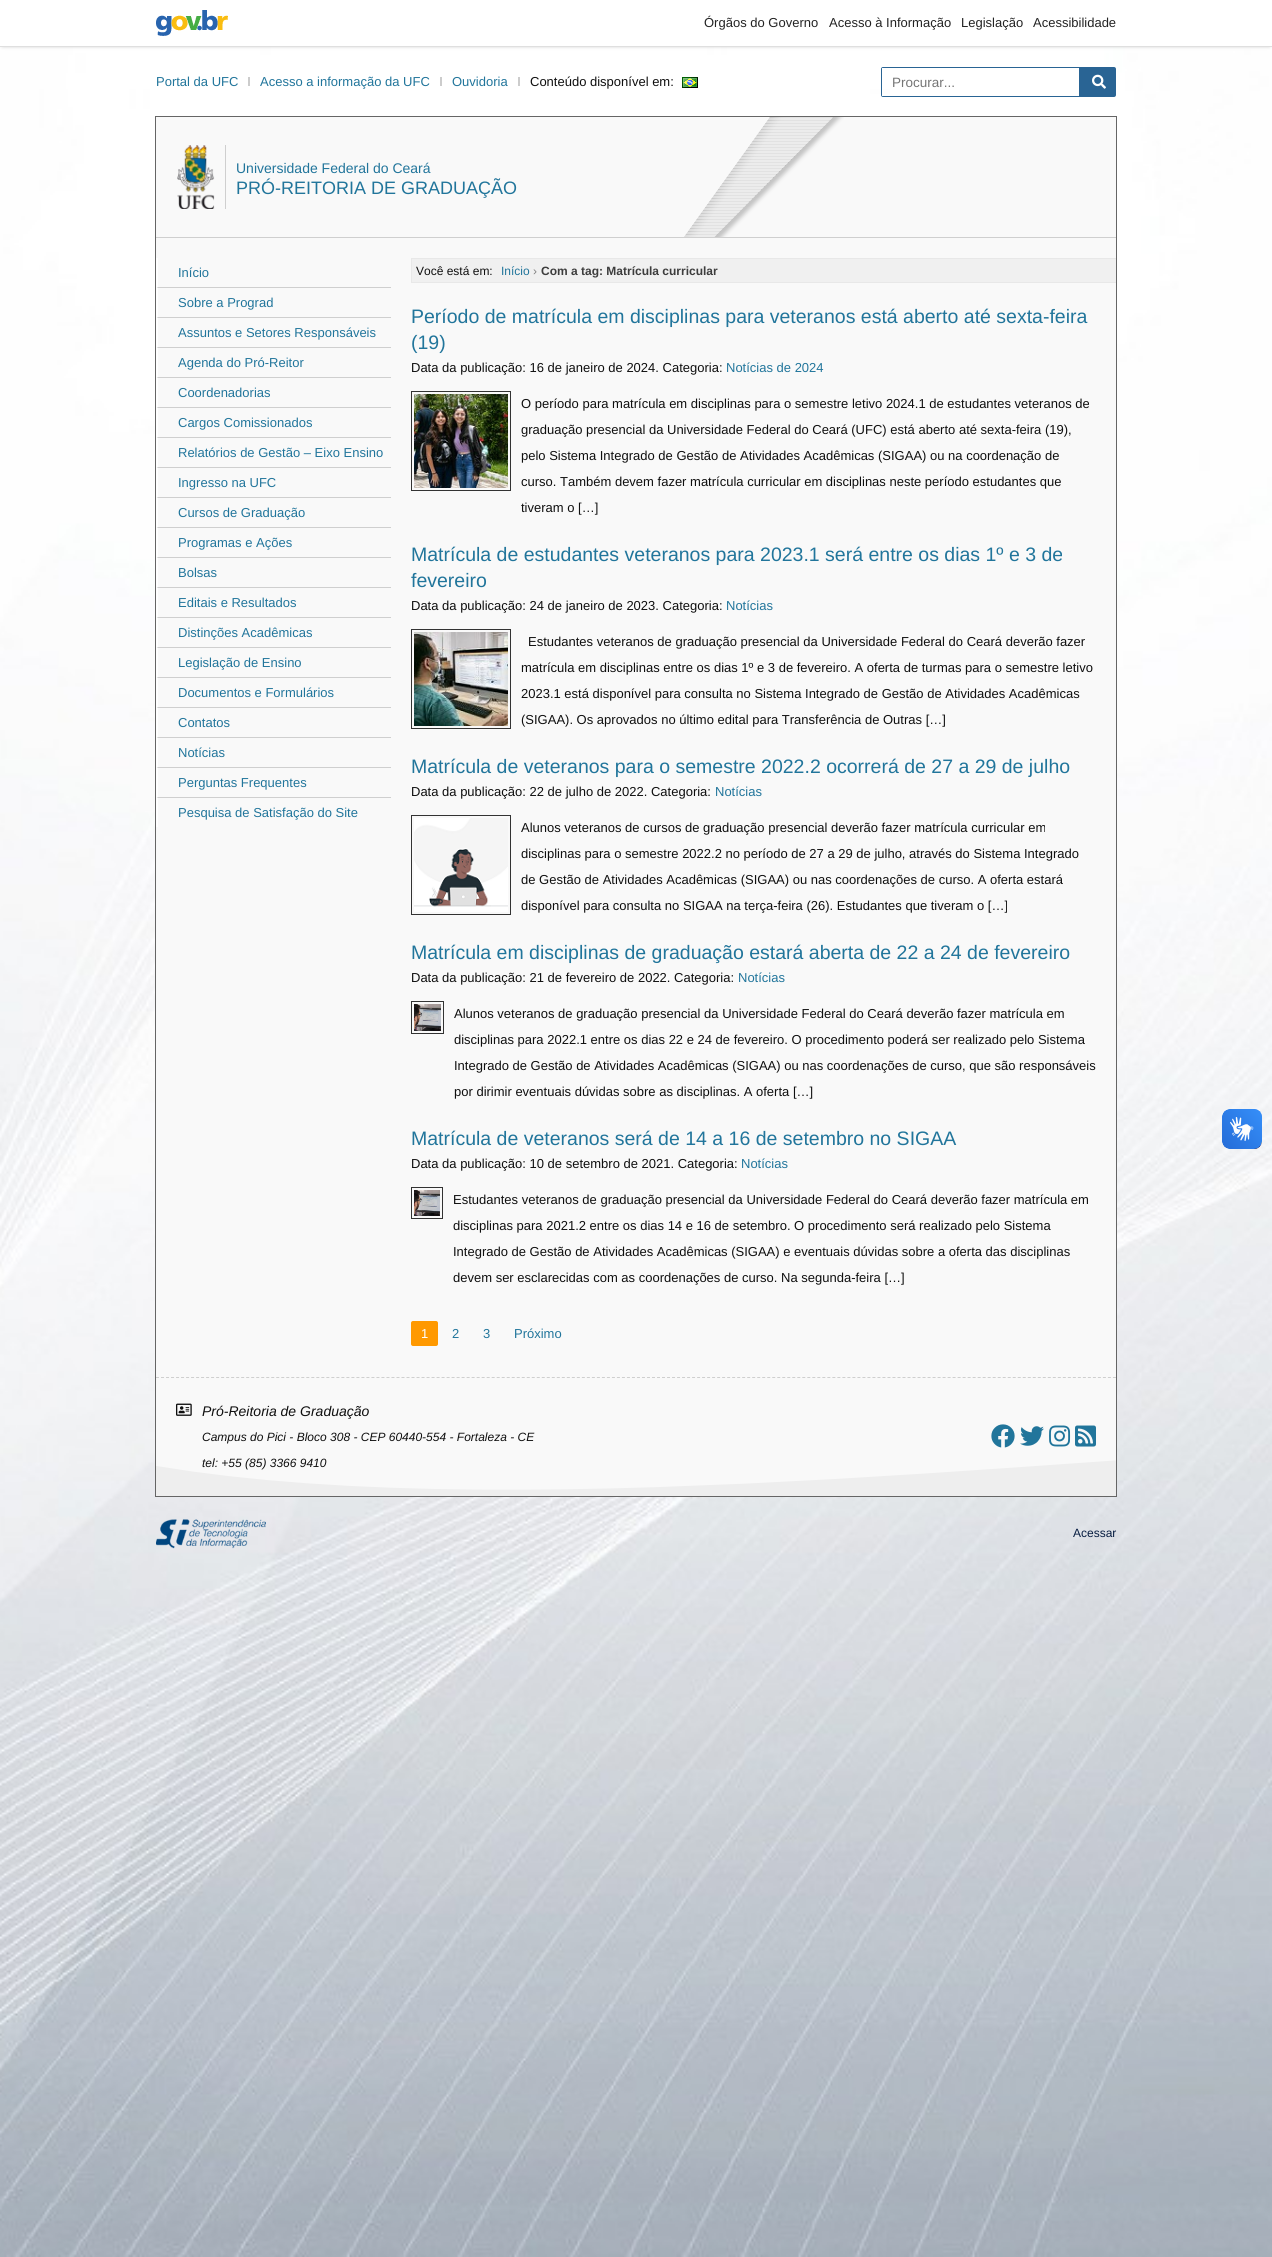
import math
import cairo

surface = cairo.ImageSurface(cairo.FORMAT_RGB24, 1272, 2257)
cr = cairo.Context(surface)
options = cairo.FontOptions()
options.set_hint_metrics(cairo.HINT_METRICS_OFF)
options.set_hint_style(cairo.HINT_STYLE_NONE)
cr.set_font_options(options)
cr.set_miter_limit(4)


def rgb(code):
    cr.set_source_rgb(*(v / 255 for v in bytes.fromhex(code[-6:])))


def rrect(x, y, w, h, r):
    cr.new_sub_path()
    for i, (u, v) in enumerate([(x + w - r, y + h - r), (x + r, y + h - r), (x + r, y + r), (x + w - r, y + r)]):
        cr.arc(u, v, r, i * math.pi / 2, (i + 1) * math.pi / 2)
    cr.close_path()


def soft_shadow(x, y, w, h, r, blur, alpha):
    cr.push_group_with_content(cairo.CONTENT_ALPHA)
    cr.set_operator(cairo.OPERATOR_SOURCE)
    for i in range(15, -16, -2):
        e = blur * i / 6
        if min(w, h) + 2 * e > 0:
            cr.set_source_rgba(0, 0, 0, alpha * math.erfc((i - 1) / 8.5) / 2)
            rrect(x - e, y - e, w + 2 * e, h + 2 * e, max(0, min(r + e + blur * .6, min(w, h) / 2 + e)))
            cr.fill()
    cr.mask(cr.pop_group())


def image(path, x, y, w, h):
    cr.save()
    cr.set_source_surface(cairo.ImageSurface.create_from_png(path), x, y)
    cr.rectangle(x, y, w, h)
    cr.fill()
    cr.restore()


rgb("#ffffff")
cr.paint()
image("img/1.png", 0, 47, 1272, 2210)
rgb("#333333")
soft_shadow(3, 3, 1266, 41, 0, 2.5, 1)
rgb("#ffffff")
cr.rectangle(0, 0, 1272, 46)
cr.fill()
rgb("#dfdfdf")
cr.rectangle(0, 46, 1272, 1)
cr.fill()
image("img/2.png", 156, 10, 72, 26)
for x, y, w, h, color in [
    (248, 77, 2, 9, "#cccccc"),
    (440, 77, 2, 9, "#cccccc"),
    (518, 77, 2, 9, "#cccccc"),
]:
    rgb(color)
    cr.rectangle(x, y, w, h)
    cr.fill()
image("img/3.png", 682, 77, 16, 11)
rrect(881.5, 67.5, 234, 29, 1.5)
rgb("#296494")
cr.set_line_width(1)
cr.stroke()
cr.rectangle(1079, 68, 36, 28)
cr.fill()
rgb("#ffffff")
cr.rectangle(882, 68, 1, 28)
cr.fill()
image("img/4.png", 1092, 74, 14, 15)
cr.rectangle(155.5, 116.5, 961, 1380)
rgb("#656565")
cr.stroke()
for x, y, w, h, color in [
    (156, 117, 960, 1379, "#f9f9f9"),
    (156, 237, 960, 1, "#cfcfcf"),
    (225, 145, 1, 64, "#cfcfcf"),
]:
    rgb(color)
    cr.rectangle(x, y, w, h)
    cr.fill()
image("img/5.png", 177, 145, 38, 64)
image("img/6.png", 684, 117, 160, 120)
cr.new_path()
cr.move_to(391, 288)
cr.line_to(156, 288)
cr.line_to(158, 287)
cr.line_to(391, 287)
cr.close_path()
cr.fill()
rgb("#ffffff")
cr.new_path()
cr.move_to(156, 288)
cr.line_to(156, 258)
cr.line_to(158, 258)
cr.line_to(158, 287)
cr.close_path()
cr.fill()
rgb("#cfcfcf")
cr.new_path()
cr.move_to(391, 318)
cr.line_to(156, 318)
cr.line_to(158, 317)
cr.line_to(391, 317)
cr.close_path()
cr.fill()
rgb("#ffffff")
cr.new_path()
cr.move_to(156, 318)
cr.line_to(156, 288)
cr.line_to(158, 288)
cr.line_to(158, 317)
cr.close_path()
cr.fill()
rgb("#cfcfcf")
cr.new_path()
cr.move_to(391, 348)
cr.line_to(156, 348)
cr.line_to(158, 347)
cr.line_to(391, 347)
cr.close_path()
cr.fill()
rgb("#ffffff")
cr.new_path()
cr.move_to(156, 348)
cr.line_to(156, 318)
cr.line_to(158, 318)
cr.line_to(158, 347)
cr.close_path()
cr.fill()
rgb("#cfcfcf")
cr.new_path()
cr.move_to(391, 378)
cr.line_to(156, 378)
cr.line_to(158, 377)
cr.line_to(391, 377)
cr.close_path()
cr.fill()
rgb("#ffffff")
cr.new_path()
cr.move_to(156, 378)
cr.line_to(156, 348)
cr.line_to(158, 348)
cr.line_to(158, 377)
cr.close_path()
cr.fill()
rgb("#cfcfcf")
cr.new_path()
cr.move_to(391, 408)
cr.line_to(156, 408)
cr.line_to(158, 407)
cr.line_to(391, 407)
cr.close_path()
cr.fill()
rgb("#ffffff")
cr.new_path()
cr.move_to(156, 408)
cr.line_to(156, 378)
cr.line_to(158, 378)
cr.line_to(158, 407)
cr.close_path()
cr.fill()
rgb("#cfcfcf")
cr.new_path()
cr.move_to(391, 438)
cr.line_to(156, 438)
cr.line_to(158, 437)
cr.line_to(391, 437)
cr.close_path()
cr.fill()
rgb("#ffffff")
cr.new_path()
cr.move_to(156, 438)
cr.line_to(156, 408)
cr.line_to(158, 408)
cr.line_to(158, 437)
cr.close_path()
cr.fill()
rgb("#cfcfcf")
cr.new_path()
cr.move_to(391, 468)
cr.line_to(156, 468)
cr.line_to(158, 467)
cr.line_to(391, 467)
cr.close_path()
cr.fill()
rgb("#ffffff")
cr.new_path()
cr.move_to(156, 468)
cr.line_to(156, 438)
cr.line_to(158, 438)
cr.line_to(158, 467)
cr.close_path()
cr.fill()
rgb("#cfcfcf")
cr.new_path()
cr.move_to(391, 498)
cr.line_to(156, 498)
cr.line_to(158, 497)
cr.line_to(391, 497)
cr.close_path()
cr.fill()
rgb("#ffffff")
cr.new_path()
cr.move_to(156, 498)
cr.line_to(156, 468)
cr.line_to(158, 468)
cr.line_to(158, 497)
cr.close_path()
cr.fill()
rgb("#cfcfcf")
cr.new_path()
cr.move_to(391, 528)
cr.line_to(156, 528)
cr.line_to(158, 527)
cr.line_to(391, 527)
cr.close_path()
cr.fill()
rgb("#ffffff")
cr.new_path()
cr.move_to(156, 528)
cr.line_to(156, 498)
cr.line_to(158, 498)
cr.line_to(158, 527)
cr.close_path()
cr.fill()
rgb("#cfcfcf")
cr.new_path()
cr.move_to(391, 558)
cr.line_to(156, 558)
cr.line_to(158, 557)
cr.line_to(391, 557)
cr.close_path()
cr.fill()
rgb("#ffffff")
cr.new_path()
cr.move_to(156, 558)
cr.line_to(156, 528)
cr.line_to(158, 528)
cr.line_to(158, 557)
cr.close_path()
cr.fill()
rgb("#cfcfcf")
cr.new_path()
cr.move_to(391, 588)
cr.line_to(156, 588)
cr.line_to(158, 587)
cr.line_to(391, 587)
cr.close_path()
cr.fill()
rgb("#ffffff")
cr.new_path()
cr.move_to(156, 588)
cr.line_to(156, 558)
cr.line_to(158, 558)
cr.line_to(158, 587)
cr.close_path()
cr.fill()
rgb("#cfcfcf")
cr.new_path()
cr.move_to(391, 618)
cr.line_to(156, 618)
cr.line_to(158, 617)
cr.line_to(391, 617)
cr.close_path()
cr.fill()
rgb("#ffffff")
cr.new_path()
cr.move_to(156, 618)
cr.line_to(156, 588)
cr.line_to(158, 588)
cr.line_to(158, 617)
cr.close_path()
cr.fill()
rgb("#cfcfcf")
cr.new_path()
cr.move_to(391, 648)
cr.line_to(156, 648)
cr.line_to(158, 647)
cr.line_to(391, 647)
cr.close_path()
cr.fill()
rgb("#ffffff")
cr.new_path()
cr.move_to(156, 648)
cr.line_to(156, 618)
cr.line_to(158, 618)
cr.line_to(158, 647)
cr.close_path()
cr.fill()
rgb("#cfcfcf")
cr.new_path()
cr.move_to(391, 678)
cr.line_to(156, 678)
cr.line_to(158, 677)
cr.line_to(391, 677)
cr.close_path()
cr.fill()
rgb("#ffffff")
cr.new_path()
cr.move_to(156, 678)
cr.line_to(156, 648)
cr.line_to(158, 648)
cr.line_to(158, 677)
cr.close_path()
cr.fill()
rgb("#cfcfcf")
cr.new_path()
cr.move_to(391, 708)
cr.line_to(156, 708)
cr.line_to(158, 707)
cr.line_to(391, 707)
cr.close_path()
cr.fill()
rgb("#ffffff")
cr.new_path()
cr.move_to(156, 708)
cr.line_to(156, 678)
cr.line_to(158, 678)
cr.line_to(158, 707)
cr.close_path()
cr.fill()
rgb("#cfcfcf")
cr.new_path()
cr.move_to(391, 738)
cr.line_to(156, 738)
cr.line_to(158, 737)
cr.line_to(391, 737)
cr.close_path()
cr.fill()
rgb("#ffffff")
cr.new_path()
cr.move_to(156, 738)
cr.line_to(156, 708)
cr.line_to(158, 708)
cr.line_to(158, 737)
cr.close_path()
cr.fill()
rgb("#cfcfcf")
cr.new_path()
cr.move_to(391, 768)
cr.line_to(156, 768)
cr.line_to(158, 767)
cr.line_to(391, 767)
cr.close_path()
cr.fill()
rgb("#ffffff")
cr.new_path()
cr.move_to(156, 768)
cr.line_to(156, 738)
cr.line_to(158, 738)
cr.line_to(158, 767)
cr.close_path()
cr.fill()
rgb("#cfcfcf")
cr.new_path()
cr.move_to(391, 798)
cr.line_to(156, 798)
cr.line_to(158, 797)
cr.line_to(391, 797)
cr.close_path()
cr.fill()
rgb("#ffffff")
cr.new_path()
cr.move_to(156, 798)
cr.line_to(156, 768)
cr.line_to(158, 768)
cr.line_to(158, 797)
cr.close_path()
cr.fill()
for x, y, w, h, color in [
    (156, 798, 2, 29, "#ffffff"),
    (412, 259, 704, 23, "#f0f0f0"),
    (411, 258, 705, 1, "#e8e8e8"),
    (411, 282, 705, 1, "#e8e8e8"),
    (411, 258, 1, 25, "#e8e8e8"),
]:
    rgb(color)
    cr.rectangle(x, y, w, h)
    cr.fill()
cr.rectangle(411.5, 391.5, 99, 99)
rgb("#333333")
cr.stroke()
image("img/7.png", 414, 394, 94, 94)
cr.rectangle(411.5, 629.5, 99, 99)
cr.stroke()
image("img/8.png", 414, 632, 94, 94)
cr.rectangle(411.5, 815.5, 99, 99)
cr.stroke()
image("img/9.png", 414, 818, 94, 94)
cr.rectangle(411.5, 1001.5, 32, 32)
cr.stroke()
image("img/10.png", 414, 1004, 27, 27)
cr.rectangle(411.5, 1187.5, 31, 31)
cr.stroke()
image("img/11.png", 414, 1190, 26, 26)
rgb("#ff9900")
rrect(411, 1321, 27, 25, 2)
cr.fill()
image("img/12.png", 156, 1460, 960, 36)
cr.new_path()
cr.move_to(156, 1377.5)
cr.line_to(1116, 1377.5)
rgb("#cfcfcf")
cr.set_dash([3, 2.01])
cr.stroke()
image("img/13.png", 176, 1403, 16, 13)
image("img/14.png", 991, 1424, 24, 24)
image("img/15.png", 1020, 1426, 24, 20)
image("img/16.png", 1049, 1425, 22, 22)
image("img/17.png", 1075, 1425, 21, 22)
image("img/18.png", 1222, 1109, 40, 40)
image("img/19.png", 1222, 1109, 40, 40)
image("img/20.png", 156, 1519, 110, 30)
cr.select_font_face("Liberation Sans")
cr.set_font_size(13)
rgb("#232323")
for x, y, s in [
    (704, 27, "Órgãos do Governo"),
    (829, 27, "Acesso à Informação"),
    (961, 27, "Legislação"),
    (1033, 27, "Acessibilidade"),
]:
    cr.move_to(x, y)
    cr.show_text(s)
rgb("#21759b")
for x, y, s in [
    (156, 86, "Portal da UFC"),
    (260, 86, "Acesso a informação da UFC"),
    (452, 86, "Ouvidoria"),
]:
    cr.move_to(x, y)
    cr.show_text(s)
rgb("#0f0f0f")
cr.move_to(530, 86)
cr.show_text("Conteúdo disponível em:")
cr.set_font_size(13.5)
rgb("#757575")
cr.move_to(892, 87)
cr.show_text("Procurar...")
cr.set_font_size(14)
rgb("#21759b")
cr.move_to(236, 173)
cr.show_text("Universidade Federal do Ceará")
cr.set_font_size(18)
cr.move_to(236, 194)
cr.show_text("PRÓ-REITORIA DE GRADUAÇÃO")
cr.set_font_size(13)
for x, y, s in [
    (178, 277, "Início"),
    (178, 307, "Sobre a Prograd"),
    (178, 337, "Assuntos e Setores Responsáveis"),
    (178, 367, "Agenda do Pró-Reitor"),
    (178, 397, "Coordenadorias"),
    (178, 427, "Cargos Comissionados"),
    (178, 457, "Relatórios de Gestão – Eixo Ensino"),
    (178, 487, "Ingresso na UFC"),
    (178, 517, "Cursos de Graduação"),
    (178, 547, "Programas e Ações"),
    (178, 577, "Bolsas"),
    (178, 607, "Editais e Resultados"),
    (178, 637, "Distinções Acadêmicas"),
    (178, 667, "Legislação de Ensino"),
    (178, 697, "Documentos e Formulários"),
    (178, 727, "Contatos"),
    (178, 757, "Notícias"),
    (178, 787, "Perguntas Frequentes"),
    (178, 817, "Pesquisa de Satisfação do Site"),
]:
    cr.move_to(x, y)
    cr.show_text(s)
cr.set_font_size(12)
rgb("#0f0f0f")
cr.move_to(416, 275)
cr.show_text("Você está em:")
rgb("#21759b")
cr.move_to(501, 275)
cr.show_text("Início")
rgb("#808080")
cr.move_to(533, 275)
cr.show_text("›")
cr.select_font_face("Liberation Sans", cairo.FONT_SLANT_NORMAL, cairo.FONT_WEIGHT_BOLD)
rgb("#3d3d3d")
cr.move_to(541, 275)
cr.show_text("Com a tag: Matrícula curricular")
cr.select_font_face("Liberation Sans")
cr.set_font_size(19.5)
rgb("#21759b")
cr.move_to(411, 323)
cr.show_text("Período de matrícula em disciplinas para veteranos está aberto até sexta-feira")
cr.move_to(411, 349)
cr.show_text("(19)")
cr.set_font_size(13)
rgb("#0f0f0f")
cr.move_to(411, 372)
cr.show_text("Data da publicação: 16 de janeiro de 2024. Categoria:")
rgb("#21759b")
cr.move_to(726, 372)
cr.show_text("Notícias de 2024")
rgb("#0f0f0f")
for x, y, s in [
    (521, 408, "O período para matrícula em disciplinas para o semestre letivo 2024.1 de estudantes veteranos de"),
    (521, 434, "graduação presencial da Universidade Federal do Ceará (UFC) está aberto até sexta-feira (19),"),
    (521, 460, "pelo Sistema Integrado de Gestão de Atividades Acadêmicas (SIGAA) ou na coordenação de"),
    (521, 486, "curso. Também devem fazer matrícula curricular em disciplinas neste período estudantes que"),
    (521, 512, "tiveram o […]"),
]:
    cr.move_to(x, y)
    cr.show_text(s)
cr.set_font_size(19.5)
rgb("#21759b")
cr.move_to(411, 561)
cr.show_text("Matrícula de estudantes veteranos para 2023.1 será entre os dias 1º e 3 de")
cr.move_to(411, 587)
cr.show_text("fevereiro")
cr.set_font_size(13)
rgb("#0f0f0f")
cr.move_to(411, 610)
cr.show_text("Data da publicação: 24 de janeiro de 2023. Categoria:")
rgb("#21759b")
cr.move_to(726, 610)
cr.show_text("Notícias")
rgb("#0f0f0f")
for x, y, s in [
    (528, 646, "Estudantes veteranos de graduação presencial da Universidade Federal do Ceará deverão fazer"),
    (521, 672, "matrícula em disciplinas entre os dias 1º e 3 de fevereiro. A oferta de turmas para o semestre letivo"),
    (521, 698, "2023.1 está disponível para consulta no Sistema Integrado de Gestão de Atividades Acadêmicas"),
    (521, 724, "(SIGAA). Os aprovados no último edital para Transferência de Outras […]"),
]:
    cr.move_to(x, y)
    cr.show_text(s)
cr.set_font_size(19.5)
rgb("#21759b")
cr.move_to(411, 773)
cr.show_text("Matrícula de veteranos para o semestre 2022.2 ocorrerá de 27 a 29 de julho")
cr.set_font_size(13)
rgb("#0f0f0f")
cr.move_to(411, 796)
cr.show_text("Data da publicação: 22 de julho de 2022. Categoria:")
rgb("#21759b")
cr.move_to(715, 796)
cr.show_text("Notícias")
rgb("#0f0f0f")
for x, y, s in [
    (521, 832, "Alunos veteranos de cursos de graduação presencial deverão fazer matrícula curricular em"),
    (521, 858, "disciplinas para o semestre 2022.2 no período de 27 a 29 de julho, através do Sistema Integrado"),
    (521, 884, "de Gestão de Atividades Acadêmicas (SIGAA) ou nas coordenações de curso. A oferta estará"),
    (521, 910, "disponível para consulta no SIGAA na terça-feira (26). Estudantes que tiveram o […]"),
]:
    cr.move_to(x, y)
    cr.show_text(s)
cr.set_font_size(19.5)
rgb("#21759b")
cr.move_to(411, 959)
cr.show_text("Matrícula em disciplinas de graduação estará aberta de 22 a 24 de fevereiro")
cr.set_font_size(13)
rgb("#0f0f0f")
cr.move_to(411, 982)
cr.show_text("Data da publicação: 21 de fevereiro de 2022. Categoria:")
rgb("#21759b")
cr.move_to(738, 982)
cr.show_text("Notícias")
rgb("#0f0f0f")
for x, y, s in [
    (454, 1018, "Alunos veteranos de graduação presencial da Universidade Federal do Ceará deverão fazer matrícula em"),
    (454, 1044, "disciplinas para 2022.1 entre os dias 22 e 24 de fevereiro. O procedimento poderá ser realizado pelo Sistema"),
    (454, 1070, "Integrado de Gestão de Atividades Acadêmicas (SIGAA) ou nas coordenações de curso, que são responsáveis"),
    (454, 1096, "por dirimir eventuais dúvidas sobre as disciplinas. A oferta […]"),
]:
    cr.move_to(x, y)
    cr.show_text(s)
cr.set_font_size(19.5)
rgb("#21759b")
cr.move_to(411, 1145)
cr.show_text("Matrícula de veteranos será de 14 a 16 de setembro no SIGAA")
cr.set_font_size(13)
rgb("#0f0f0f")
cr.move_to(411, 1168)
cr.show_text("Data da publicação: 10 de setembro de 2021. Categoria:")
rgb("#21759b")
cr.move_to(741, 1168)
cr.show_text("Notícias")
rgb("#0f0f0f")
for x, y, s in [
    (453, 1204, "Estudantes veteranos de graduação presencial da Universidade Federal do Ceará deverão fazer matrícula em"),
    (453, 1230, "disciplinas para 2021.2 entre os dias 14 e 16 de setembro. O procedimento será realizado pelo Sistema"),
    (453, 1256, "Integrado de Gestão de Atividades Acadêmicas (SIGAA) e eventuais dúvidas sobre a oferta das disciplinas"),
    (453, 1282, "devem ser esclarecidas com as coordenações de curso. Na segunda-feira […]"),
]:
    cr.move_to(x, y)
    cr.show_text(s)
rgb("#ffffff")
cr.move_to(421, 1338)
cr.show_text("1")
rgb("#21759b")
for x, y, s in [
    (452, 1338, "2"),
    (483, 1338, "3"),
    (514, 1338, "Próximo"),
]:
    cr.move_to(x, y)
    cr.show_text(s)
cr.select_font_face("Liberation Sans", cairo.FONT_SLANT_ITALIC)
cr.set_font_size(14)
rgb("#0f0f0f")
cr.move_to(202, 1416)
cr.show_text("Pró-Reitoria de Graduação")
cr.set_font_size(12)
cr.move_to(202, 1441)
cr.show_text("Campus do Pici - Bloco 308 - CEP 60440-554 - Fortaleza - CE")
cr.move_to(202, 1467)
cr.show_text("tel: +55 (85) 3366 9410")
cr.select_font_face("Liberation Sans")
rgb("#071d41")
cr.move_to(1073, 1537)
cr.show_text("Acessar")
surface.write_to_png("page.png")
